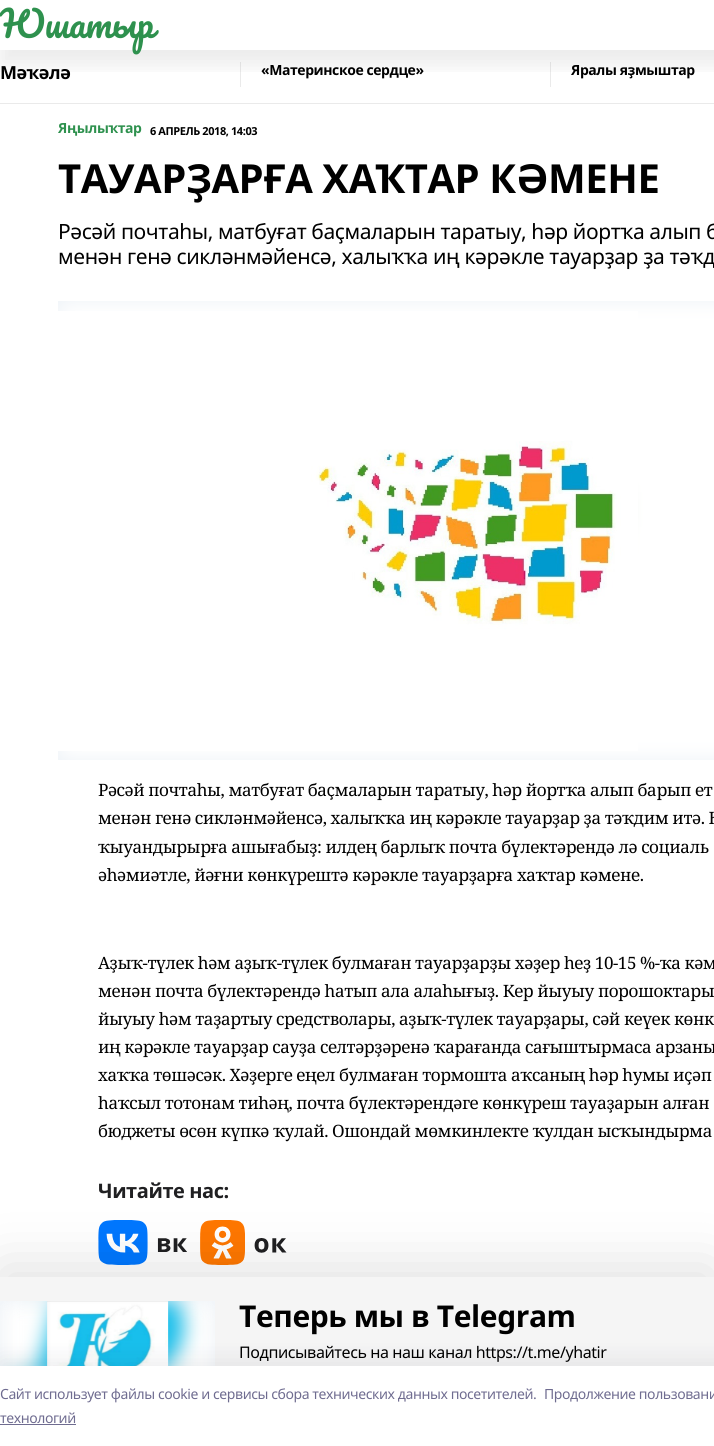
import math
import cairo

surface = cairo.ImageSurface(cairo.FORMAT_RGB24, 714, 1446)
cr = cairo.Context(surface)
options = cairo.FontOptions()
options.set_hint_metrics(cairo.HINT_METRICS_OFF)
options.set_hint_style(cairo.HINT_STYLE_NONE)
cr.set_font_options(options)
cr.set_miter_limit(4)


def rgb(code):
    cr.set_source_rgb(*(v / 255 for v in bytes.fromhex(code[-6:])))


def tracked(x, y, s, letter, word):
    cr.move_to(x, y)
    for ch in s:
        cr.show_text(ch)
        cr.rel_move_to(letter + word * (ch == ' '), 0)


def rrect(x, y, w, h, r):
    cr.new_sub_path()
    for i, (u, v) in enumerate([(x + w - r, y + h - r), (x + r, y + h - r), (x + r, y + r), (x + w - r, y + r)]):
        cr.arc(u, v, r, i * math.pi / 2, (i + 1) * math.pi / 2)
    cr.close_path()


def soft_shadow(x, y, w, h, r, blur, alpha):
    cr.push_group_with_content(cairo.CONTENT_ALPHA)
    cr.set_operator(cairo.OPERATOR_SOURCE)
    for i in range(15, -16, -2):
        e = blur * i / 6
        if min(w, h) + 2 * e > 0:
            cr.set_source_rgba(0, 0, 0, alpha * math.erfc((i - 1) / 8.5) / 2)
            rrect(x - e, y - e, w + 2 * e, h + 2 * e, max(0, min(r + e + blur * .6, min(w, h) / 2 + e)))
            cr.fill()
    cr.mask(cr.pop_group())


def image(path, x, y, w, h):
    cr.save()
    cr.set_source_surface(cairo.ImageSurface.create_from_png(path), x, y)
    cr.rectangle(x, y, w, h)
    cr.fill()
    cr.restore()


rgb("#ffffff")
cr.paint()
rgb("#eaeaea")
cr.rectangle(240, 62, 1, 25)
cr.fill()
cr.rectangle(550, 62, 1, 25)
cr.fill()
cr.save()
cr.rectangle(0, 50, 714, 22)
cr.clip()
rgb("#000000")
soft_shadow(0, 15, 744, 50, 0, 10, 0.08)
cr.restore()
cr.rectangle(0, 103, 714, 1)
cr.fill()
rgb("#edf2f7")
cr.rectangle(58, 301, 656, 459)
cr.fill()
image("img/1.png", 58, 301, 656, 459)
image("img/2.png", 58, 311, 580, 440)
image("img/3.png", 98, 1220, 89, 45)
image("img/4.png", 200, 1220, 87, 45)
rgb("#000000")
soft_shadow(0, 1267, 714, 169, 0, 30, 0.12)
rgb("#f5f5f5")
cr.rectangle(0, 1277, 714, 89)
cr.fill()
rgb("#edf2f7")
cr.rectangle(0, 1301, 215, 65)
cr.fill()
image("img/5.png", 0, 1301, 215, 65)
image("img/6.png", 47, 1301, 122, 65)
rgb("#14142b")
soft_shadow(0, 1360, 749, 80, 0, 11.5, 0.08)
rgb("#ffffff")
cr.rectangle(0, 1366, 714, 80)
cr.fill()
rgb("#6f6c90")
cr.rectangle(0, 1424, 76, 1)
cr.fill()
cr.select_font_face("Pacifico")
cr.set_font_size(36)
rgb("#2e914e")
tracked(0, 38, "Юшатыр", -0.42, 0)
cr.select_font_face("Noto Sans", cairo.FONT_SLANT_NORMAL, cairo.FONT_WEIGHT_BOLD)
cr.set_font_size(18)
rgb("#000000")
tracked(0, 79, "Мәҡәлә", -0.42, 0)
cr.set_font_size(14)
tracked(261, 75, "«Материнское сердце»", -0.42, 0)
tracked(571, 75, "Яралы яҙмыштар", -0.42, 0)
rgb("#2e914e")
tracked(58, 133, "Яңылыҡтар", -0.42, 0)
cr.set_font_size(11)
rgb("#000000")
tracked(150, 135, "6 АПРЕЛЬ 2018, 14:03", -0.42, 0)
cr.set_font_size(40)
tracked(58, 193, "ТАУАРҘАРҒА ХАҠТАР КӘМЕНЕ", -0.42, 0)
cr.select_font_face("Noto Sans")
cr.set_font_size(21)
tracked(58, 239, "Рәсәй почтаһы, матбуғат баҫмаларын таратыу, һәр йортҡа алып б", -0.42, 0)
tracked(58, 264, "менән генә сикләнмәйенсә, халыҡҡа иң кәрәкле тауарҙар ҙа тәҡд", -0.42, 0)
cr.select_font_face("Noto Serif")
cr.set_font_size(17)
for x, y, s in [
    (98, 796, "Рәсәй почтаһы, матбуғат баҫмаларын таратыу, һәр йортҡа алып барып ет"),
    (98, 824, "менән генә сикләнмәйенсә, халыҡҡа иң кәрәкле тауарҙар ҙа тәҡдим итә. Һ"),
    (98, 853, "ҡыуандырырға ашығабыҙ: илдең барлыҡ почта бүлектәрендә лә социаль"),
    (98, 881, "әһәмиәтле, йәғни көнкүрештә кәрәкле тауарҙарға хаҡтар кәмене."),
    (98, 969, "Аҙыҡ-түлек һәм аҙыҡ-түлек булмаған тауарҙарҙы хәҙер һеҙ 10-15 %-ҡа кәм"),
    (98, 997, "менән почта бүлектәрендә һатып ала алаһығыҙ. Кер йыуыу порошоктары"),
    (98, 1025, "йыуыу һәм таҙартыу средстволары, аҙыҡ-түлек тауарҙары, сәй кеүек көнк"),
    (98, 1053, "иң кәрәкле тауарҙар сауҙа селтәрҙәренә ҡарағанда сағыштырмаса арзаны"),
    (98, 1081, "хаҡҡа төшәсәк. Хәҙерге еңел булмаған тормошта аҡсаның һәр һумы иҫәп"),
    (98, 1109, "һаҡсыл тотонам тиһәң, почта бүлектәрендәге көнкүреш тауаҙарын алған"),
    (98, 1137, "бюджеты өсөн күпкә ҡулай. Ошондай мөмкинлекте ҡулдан ысҡындырма"),
]:
    tracked(x, y, s, -0.42, 0)
cr.select_font_face("Noto Sans", cairo.FONT_SLANT_NORMAL, cairo.FONT_WEIGHT_BOLD)
cr.set_font_size(20)
rgb("#202022")
tracked(98, 1198, "Читайте нас:", -0.42, 0)
cr.set_font_size(30)
rgb("#000000")
tracked(239, 1327, "Теперь мы в Telegram", -0.42, 0)
cr.select_font_face("Noto Sans")
cr.set_font_size(16)
tracked(239, 1358, "Подписывайтесь на наш канал https://t.me/yhatir", -0.42, 0)
cr.set_font_size(14)
rgb("#6f6c90")
for x, y, s in [
    (0, 1399, "Cайт использует файлы cookie и сервисы сбора технических данных посетителей."),
    (544, 1399, "Продолжение пользовани"),
    (0, 1423, "технологий"),
]:
    tracked(x, y, s, -0.42, 0)
surface.write_to_png("page.png")
